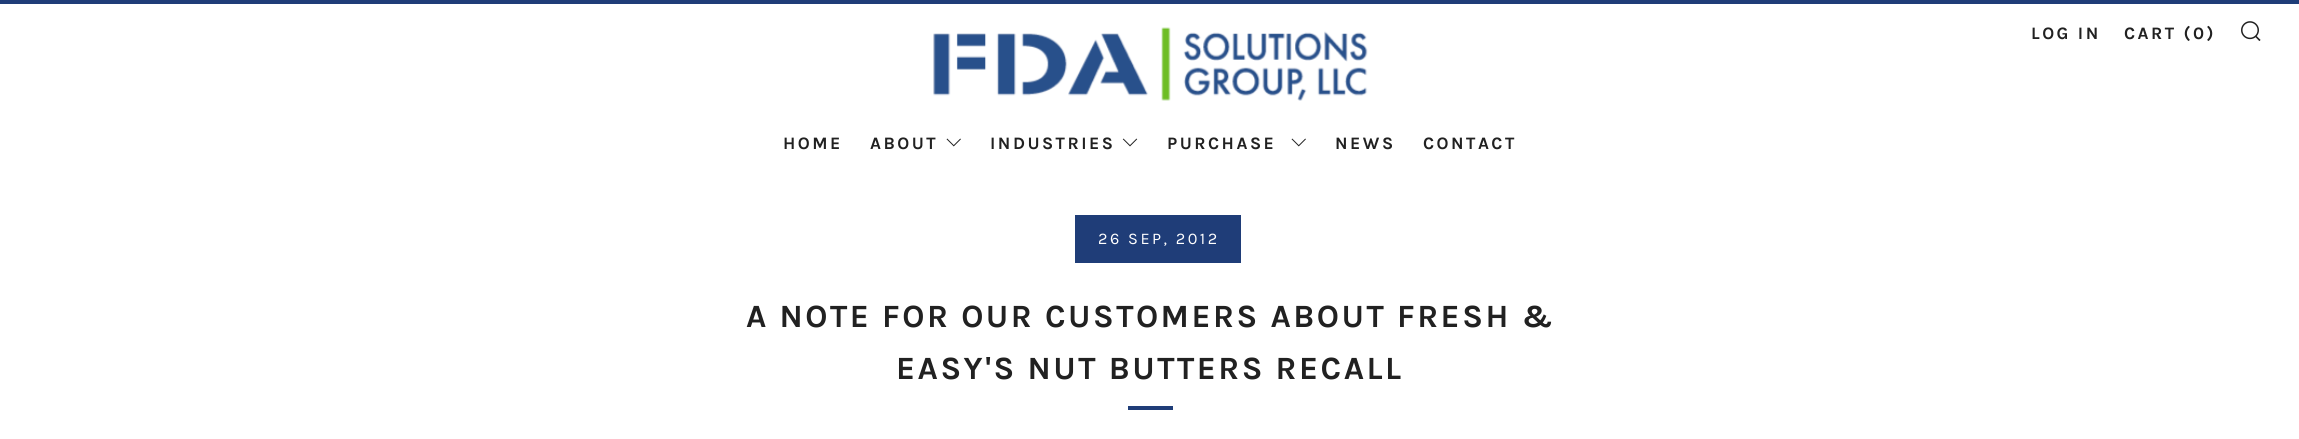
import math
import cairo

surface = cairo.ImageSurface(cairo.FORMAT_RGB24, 2299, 439)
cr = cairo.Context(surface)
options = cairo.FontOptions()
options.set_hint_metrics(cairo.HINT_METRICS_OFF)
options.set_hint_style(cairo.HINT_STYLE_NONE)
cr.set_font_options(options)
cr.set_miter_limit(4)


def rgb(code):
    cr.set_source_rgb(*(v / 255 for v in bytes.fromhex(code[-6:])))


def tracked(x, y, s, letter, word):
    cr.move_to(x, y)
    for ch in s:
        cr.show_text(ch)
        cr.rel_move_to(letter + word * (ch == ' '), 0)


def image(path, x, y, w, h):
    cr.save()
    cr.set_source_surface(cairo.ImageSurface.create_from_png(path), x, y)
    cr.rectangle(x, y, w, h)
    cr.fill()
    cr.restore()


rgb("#ffffff")
cr.paint()
rgb("#1f3d78")
cr.rectangle(0, 0, 2299, 4)
cr.fill()
image("img/1.png", 2241, 21, 20, 20)
image("img/2.png", 946, 138, 15, 9)
image("img/3.png", 1122, 138, 16, 9)
image("img/2.png", 1291, 138, 15, 9)
image("img/4.png", 933, 27, 435, 74)
cr.rectangle(1075, 215, 166, 48)
cr.fill()
cr.rectangle(1128, 406, 45, 4)
cr.fill()
cr.select_font_face("Karla", cairo.FONT_SLANT_NORMAL, cairo.FONT_WEIGHT_BOLD)
cr.set_font_size(17.5)
rgb("#212121")
for x, y, s in [
    (2031, 39, "LOG IN"),
    (2124, 39, "CART (0)"),
    (783, 149, "HOME"),
    (870, 149, "ABOUT"),
    (990, 149, "INDUSTRIES"),
    (1167, 149, "PURCHASE"),
    (1335, 149, "NEWS"),
    (1423, 149, "CONTACT"),
]:
    tracked(x, y, s, 2.5, 0)
cr.select_font_face("Karla")
cr.set_font_size(16.25)
rgb("#ffffff")
tracked(1098, 244, "26 SEP, 2012", 2.5, 0)
cr.select_font_face("Karla", cairo.FONT_SLANT_NORMAL, cairo.FONT_WEIGHT_BOLD)
cr.set_font_size(32.5)
rgb("#212121")
tracked(746, 327, "A NOTE FOR OUR CUSTOMERS ABOUT FRESH &", 2.5, 0)
tracked(896, 379, "EASY'S NUT BUTTERS RECALL", 2.5, 0)
surface.write_to_png("page.png")
